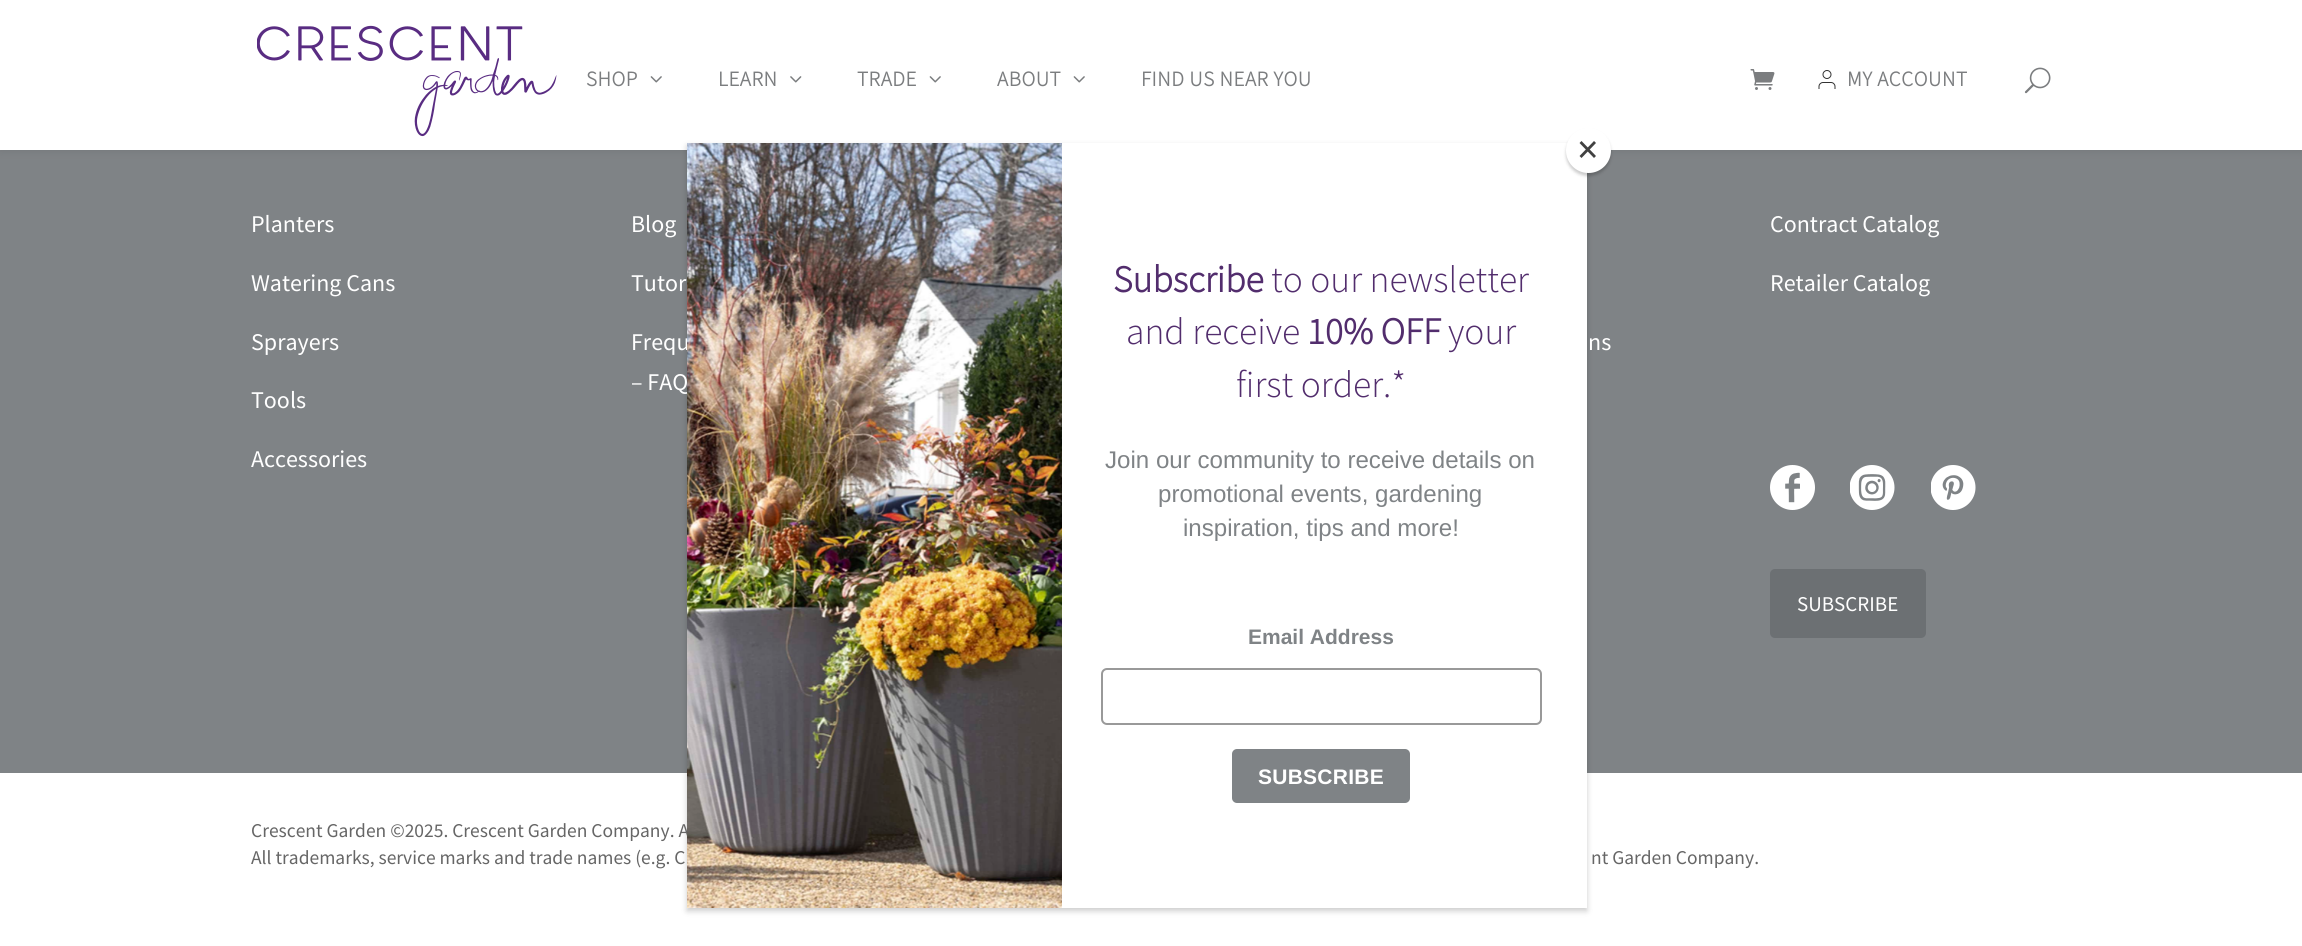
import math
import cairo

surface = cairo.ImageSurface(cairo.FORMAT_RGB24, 2302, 946)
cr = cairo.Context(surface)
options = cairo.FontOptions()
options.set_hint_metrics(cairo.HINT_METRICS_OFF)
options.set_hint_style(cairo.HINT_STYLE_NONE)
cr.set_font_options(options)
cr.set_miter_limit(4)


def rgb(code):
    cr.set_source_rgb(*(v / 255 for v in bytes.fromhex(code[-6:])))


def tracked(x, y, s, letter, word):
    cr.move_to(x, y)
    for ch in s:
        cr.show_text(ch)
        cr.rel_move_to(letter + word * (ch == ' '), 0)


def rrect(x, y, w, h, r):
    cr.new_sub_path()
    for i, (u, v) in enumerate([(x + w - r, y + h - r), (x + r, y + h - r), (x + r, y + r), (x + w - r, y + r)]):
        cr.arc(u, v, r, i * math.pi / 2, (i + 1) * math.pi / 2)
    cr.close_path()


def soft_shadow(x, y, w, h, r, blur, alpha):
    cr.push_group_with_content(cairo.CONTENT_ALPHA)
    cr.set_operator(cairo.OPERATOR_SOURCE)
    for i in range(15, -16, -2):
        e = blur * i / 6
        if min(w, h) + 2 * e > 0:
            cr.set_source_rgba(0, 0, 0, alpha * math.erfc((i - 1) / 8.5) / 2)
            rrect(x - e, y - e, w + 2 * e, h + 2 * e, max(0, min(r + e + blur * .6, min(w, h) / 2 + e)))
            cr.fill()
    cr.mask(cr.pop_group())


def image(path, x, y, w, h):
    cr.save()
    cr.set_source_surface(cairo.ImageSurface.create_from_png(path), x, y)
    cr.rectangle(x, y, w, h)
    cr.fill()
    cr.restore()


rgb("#7f8386")
cr.paint()
rgb("#000000")
soft_shadow(0, 0, 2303, 150, 0, 5, 0.1)
rgb("#ffffff")
cr.rectangle(0, 0, 2302, 150)
cr.fill()
image("img/1.png", 257, 25, 300, 112)
image("img/2.png", 650, 76, 12, 7)
image("img/3.png", 790, 76, 12, 7)
image("img/2.png", 929, 76, 12, 7)
image("img/2.png", 1073, 76, 12, 7)
image("img/4.png", 1750, 69, 25, 21)
image("img/5.png", 1818, 70, 18, 19)
image("img/6.png", 2024, 67, 27, 27)
image("img/7.png", 1770, 465, 45, 45)
image("img/8.png", 1850, 465, 45, 45)
image("img/9.png", 1931, 465, 45, 45)
rgb("#6c7073")
rrect(1770, 569, 156, 69, 5)
cr.fill()
rgb("#ffffff")
cr.rectangle(0, 773, 2302, 173)
cr.fill()
rgb("#000000")
soft_shadow(687, 146, 900, 765, 0, 3, 0.2)
rgb("#ffffff")
cr.rectangle(1062, 143, 525, 765)
cr.fill()
rgb("#000000")
soft_shadow(1566, 131, 45, 45, 22.5, 1.5, 0.2)
rgb("#ffffff")
cr.arc(1588.5, 150.5, 22.5, 0, 2 * math.pi)
cr.fill()
rgb("#414141")
cr.new_path()
cr.move_to(1594, 141)
cr.line_to(1596, 143)
cr.line_to(1581.5, 158)
cr.line_to(1579.5, 156)
cr.close_path()
cr.fill()
cr.new_path()
cr.move_to(1579.5, 143)
cr.line_to(1581.5, 141)
cr.line_to(1596, 156)
cr.line_to(1594, 158)
cr.close_path()
cr.fill()
rrect(1102, 669, 439, 55, 5)
rgb("#999999")
cr.stroke()
rgb("#7f8386")
rrect(1232, 749, 178, 54, 5)
cr.fill()
cr.select_font_face("Source Sans Pro", cairo.FONT_SLANT_NORMAL, cairo.FONT_WEIGHT_BOLD)
cr.set_font_size(21)
rgb("#7b7d7f")
for x, y, s in [
    (586, 86, "SHOP"),
    (718, 86, "LEARN"),
    (857, 86, "TRADE"),
    (997, 86, "ABOUT"),
    (1141, 86, "FIND US NEAR YOU"),
    (1847, 86, "MY ACCOUNT"),
]:
    tracked(x, y, s, 0.6, 0)
cr.select_font_face("Source Sans Pro")
cr.set_font_size(24)
rgb("#ffffff")
for x, y, s in [
    (251, 232, "Planters"),
    (251, 291, "Watering Cans"),
    (251, 350, "Sprayers"),
    (251, 408, "Tools"),
    (251, 467, "Accessories"),
    (631, 232, "Blog"),
    (631, 291, "Tutor"),
    (631, 350, "Frequ"),
    (631, 390, "– FAQ"),
    (1588, 350, "ns"),
    (1770, 232, "Contract Catalog"),
    (1770, 291, "Retailer Catalog"),
]:
    cr.move_to(x, y)
    cr.show_text(s)
cr.set_font_size(21)
cr.move_to(1797, 611)
cr.show_text("SUBSCRIBE")
cr.set_font_size(19.5)
rgb("#666666")
for x, y, s in [
    (251, 837, "Crescent Garden ©2025. Crescent Garden Company. A"),
    (251, 864, "All trademarks, service marks and trade names (e.g. C"),
    (1591, 864, "nt Garden Company."),
]:
    cr.move_to(x, y)
    cr.show_text(s)
image("img/10.png", 687, 143, 375, 765)
cr.select_font_face("Source Sans Pro", cairo.FONT_SLANT_NORMAL, cairo.FONT_WEIGHT_BOLD)
cr.set_font_size(37.5)
rgb("#522d6d")
cr.move_to(1113, 292)
cr.show_text("Subscribe")
cr.select_font_face("Source Sans Pro Light")
cr.move_to(1271, 292)
cr.show_text("to our newsletter")
cr.move_to(1126, 344)
cr.show_text("and receive")
cr.select_font_face("Source Sans Pro", cairo.FONT_SLANT_NORMAL, cairo.FONT_WEIGHT_BOLD)
cr.move_to(1307, 344)
cr.show_text("10% OFF")
cr.select_font_face("Source Sans Pro Light")
cr.move_to(1448, 344)
cr.show_text("your")
cr.move_to(1236, 397)
cr.show_text("first order.*")
cr.select_font_face("Liberation Sans")
cr.set_font_size(24.1)
rgb("#7f8386")
for x, y, s in [
    (1105, 468, "Join our community to receive details on"),
    (1158, 502, "promotional events, gardening"),
    (1183, 536, "inspiration, tips and more!"),
]:
    cr.move_to(x, y)
    cr.show_text(s)
cr.select_font_face("Liberation Sans", cairo.FONT_SLANT_NORMAL, cairo.FONT_WEIGHT_BOLD)
cr.set_font_size(21)
cr.move_to(1248, 644)
cr.show_text("Email Address")
rgb("#ffffff")
tracked(1258, 784, "SUBSCRIBE", 0.25, 0)
surface.write_to_png("page.png")
